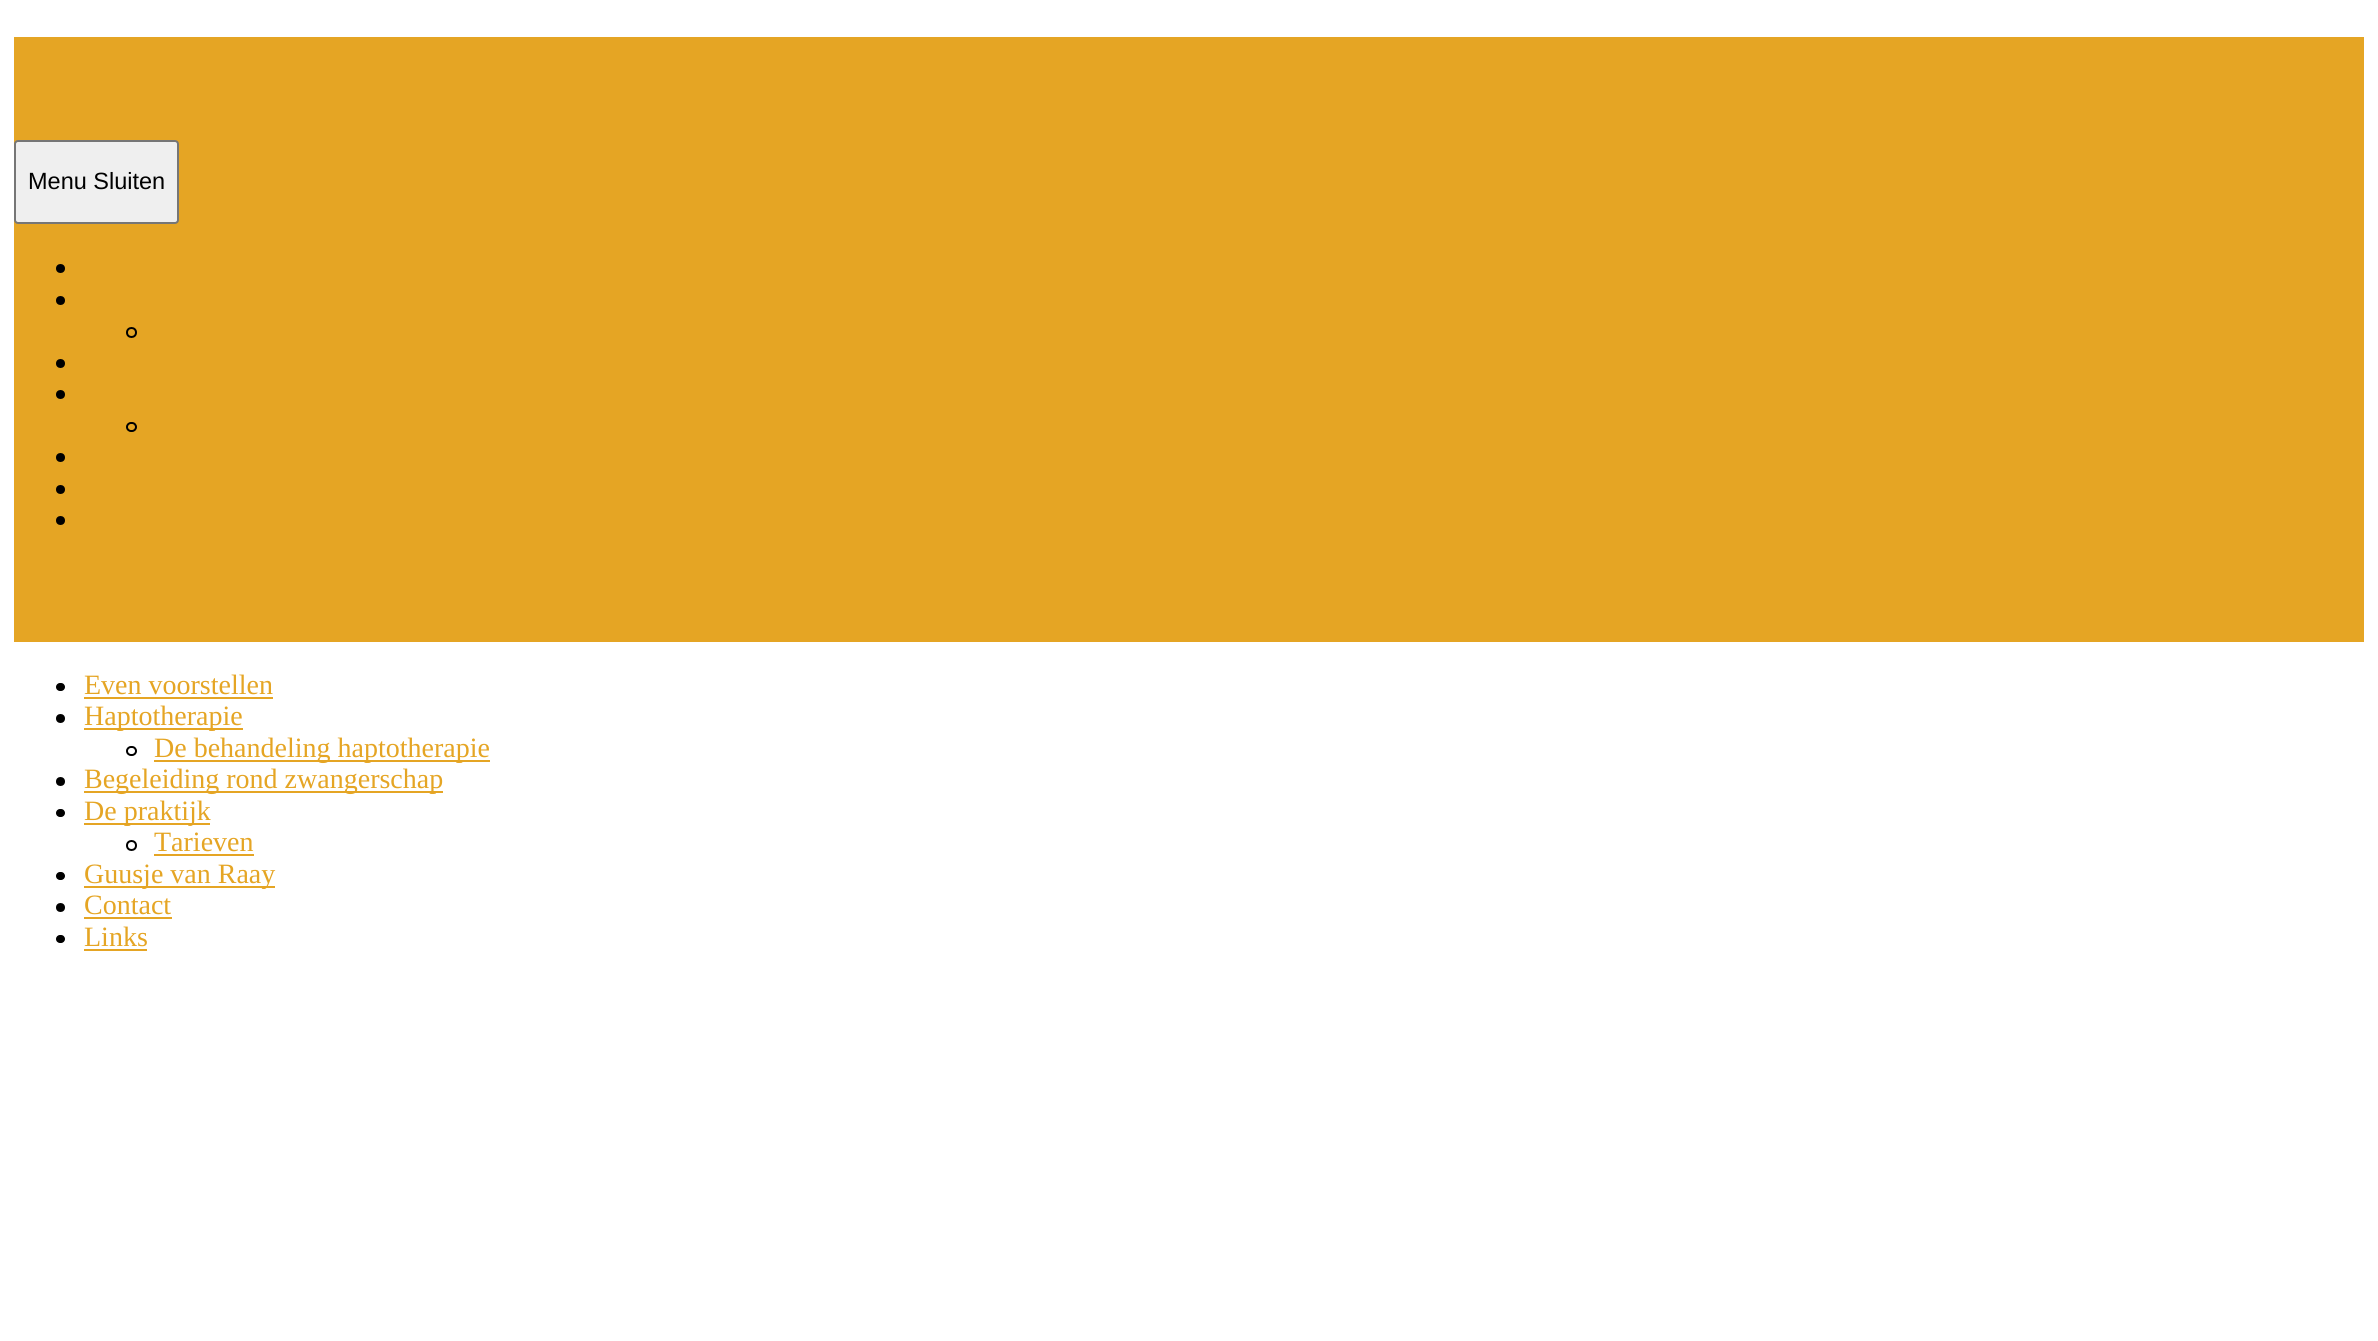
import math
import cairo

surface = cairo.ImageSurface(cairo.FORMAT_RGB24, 2378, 1341)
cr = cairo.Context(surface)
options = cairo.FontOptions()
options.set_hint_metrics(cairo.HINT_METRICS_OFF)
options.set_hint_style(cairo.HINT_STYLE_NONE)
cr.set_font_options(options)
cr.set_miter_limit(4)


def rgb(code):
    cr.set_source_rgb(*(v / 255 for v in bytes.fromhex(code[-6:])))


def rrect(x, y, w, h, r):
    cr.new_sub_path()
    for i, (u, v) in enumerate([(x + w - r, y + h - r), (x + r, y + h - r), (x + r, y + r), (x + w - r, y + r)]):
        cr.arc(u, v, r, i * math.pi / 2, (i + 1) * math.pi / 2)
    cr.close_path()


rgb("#ffffff")
cr.paint()
rgb("#e5a524")
cr.rectangle(14, 37, 2350, 605)
cr.fill()
rgb("#efefef")
rrect(15, 141, 163, 82, 3)
cr.fill_preserve()
rgb("#767676")
cr.stroke()
rgb("#000000")
cr.arc(60.5, 268.5, 4.5, 0, 2 * math.pi)
cr.fill()
cr.arc(60.5, 300.5, 4.5, 0, 2 * math.pi)
cr.fill()
cr.arc(131.5, 332.5, 4.5, 0, 2 * math.pi)
cr.stroke()
cr.arc(60.5, 363.5, 4.5, 0, 2 * math.pi)
cr.fill()
cr.arc(60.5, 394.5, 4.5, 0, 2 * math.pi)
cr.fill()
rrect(127, 423, 9, 8, 4)
cr.stroke()
cr.arc(60.5, 457.5, 4.5, 0, 2 * math.pi)
cr.fill()
cr.arc(60.5, 489.5, 4.5, 0, 2 * math.pi)
cr.fill()
cr.arc(60.5, 520.5, 4.5, 0, 2 * math.pi)
cr.fill()
rrect(56, 683, 9, 8, 4)
cr.fill()
rgb("#e5a524")
cr.rectangle(84, 697, 189, 2)
cr.fill()
rgb("#000000")
cr.arc(60.5, 718.5, 4.5, 0, 2 * math.pi)
cr.fill()
rgb("#e5a524")
cr.rectangle(84, 728, 159, 2)
cr.fill()
rrect(127, 747, 9, 8, 4)
rgb("#000000")
cr.stroke()
rgb("#e5a524")
cr.rectangle(154, 760, 336, 2)
cr.fill()
rgb("#000000")
cr.arc(60.5, 781.5, 4.5, 0, 2 * math.pi)
cr.fill()
rgb("#e5a524")
cr.rectangle(84, 791, 359, 2)
cr.fill()
rgb("#000000")
rrect(56, 809, 9, 8, 4)
cr.fill()
rgb("#e5a524")
cr.rectangle(84, 823, 126, 2)
cr.fill()
cr.arc(131.5, 845.5, 4.5, 0, 2 * math.pi)
rgb("#000000")
cr.stroke()
rgb("#e5a524")
cr.rectangle(154, 854, 100, 2)
cr.fill()
rgb("#000000")
rrect(56, 872, 9, 8, 4)
cr.fill()
rgb("#e5a524")
cr.rectangle(84, 886, 191, 2)
cr.fill()
rgb("#000000")
cr.arc(60.5, 907.5, 4.5, 0, 2 * math.pi)
cr.fill()
rgb("#e5a524")
cr.rectangle(84, 917, 88, 2)
cr.fill()
rgb("#000000")
rrect(56, 935, 9, 8, 4)
cr.fill()
rgb("#e5a524")
cr.rectangle(84, 949, 63, 2)
cr.fill()
cr.select_font_face("Liberation Sans")
cr.set_font_size(23.5)
rgb("#000000")
cr.move_to(28, 189)
cr.show_text("Menu Sluiten")
cr.select_font_face("Liberation Serif")
cr.set_font_size(28)
rgb("#e5a524")
for x, y, s in [
    (84, 694, "Even voorstellen"),
    (84, 725, "Haptotherapie"),
    (154, 757, "De behandeling haptotherapie"),
    (84, 788, "Begeleiding rond zwangerschap"),
    (84, 820, "De praktijk"),
    (154, 851, "Tarieven"),
    (84, 883, "Guusje van Raay"),
    (84, 914, "Contact"),
    (84, 946, "Links"),
]:
    cr.move_to(x, y)
    cr.show_text(s)
surface.write_to_png("page.png")
